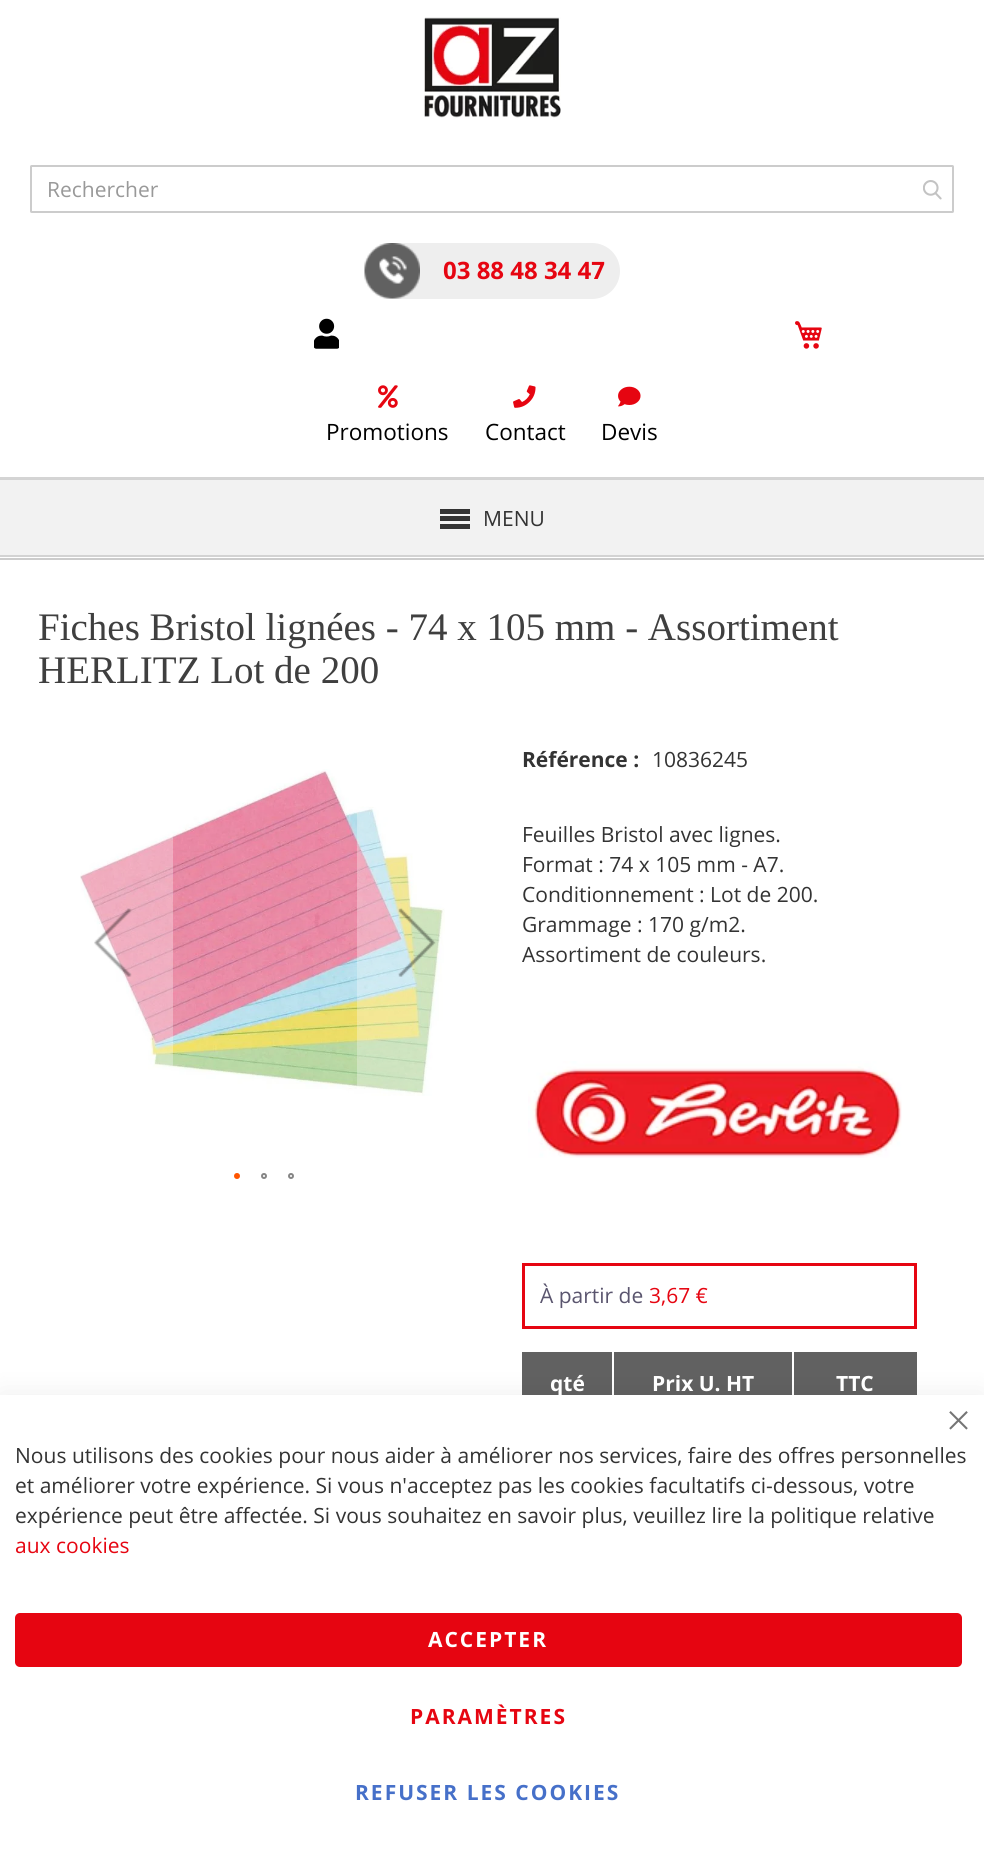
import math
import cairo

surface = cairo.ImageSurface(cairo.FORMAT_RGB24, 984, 1864)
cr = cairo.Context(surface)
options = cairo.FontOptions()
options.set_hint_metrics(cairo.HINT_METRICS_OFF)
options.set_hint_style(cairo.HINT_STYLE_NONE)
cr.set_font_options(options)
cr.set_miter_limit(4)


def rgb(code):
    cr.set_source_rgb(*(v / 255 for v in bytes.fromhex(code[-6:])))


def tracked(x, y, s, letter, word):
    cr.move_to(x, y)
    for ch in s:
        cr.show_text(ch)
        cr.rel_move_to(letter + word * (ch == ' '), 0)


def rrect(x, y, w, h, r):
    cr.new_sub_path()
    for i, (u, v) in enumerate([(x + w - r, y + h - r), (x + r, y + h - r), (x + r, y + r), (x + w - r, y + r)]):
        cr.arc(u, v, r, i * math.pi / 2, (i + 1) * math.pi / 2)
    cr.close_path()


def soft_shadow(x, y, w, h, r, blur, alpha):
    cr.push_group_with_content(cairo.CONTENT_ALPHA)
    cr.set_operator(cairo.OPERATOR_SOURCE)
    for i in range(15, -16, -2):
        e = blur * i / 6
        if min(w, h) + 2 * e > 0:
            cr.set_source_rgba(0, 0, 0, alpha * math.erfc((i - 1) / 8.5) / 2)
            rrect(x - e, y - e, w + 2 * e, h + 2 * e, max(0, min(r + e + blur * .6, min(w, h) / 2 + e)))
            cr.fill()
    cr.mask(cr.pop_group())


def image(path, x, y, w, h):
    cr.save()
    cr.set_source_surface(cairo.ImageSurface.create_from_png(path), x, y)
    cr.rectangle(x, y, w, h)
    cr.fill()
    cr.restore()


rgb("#ffffff")
cr.paint()
rgb("#cccccc")
cr.rectangle(0, 558, 984, 2)
cr.fill()
image("img/1.png", 424, 17, 137, 103)
rrect(31, 166, 922, 46, 0.5)
cr.stroke()
image("img/2.png", 923, 180, 19, 20)
rgb("#eeeeee")
rrect(365, 243, 255, 56, 28)
cr.fill()
image("img/3.png", 364, 243, 56, 56)
image("img/4.png", 314, 318, 25, 31)
image("img/5.png", 795, 321, 27, 28)
rgb("#d4d4d4")
cr.rectangle(0, 477, 984, 2)
cr.fill()
image("img/6.png", 378, 385, 20, 23)
image("img/7.png", 513, 385, 23, 23)
image("img/8.png", 618, 386, 23, 21)
for x, y, w, h, color in [
    (0, 479, 984, 1, "#d3d3d3"),
    (0, 555, 984, 2, "#d3d3d3"),
    (0, 480, 984, 75, "#f2f2f2"),
    (440, 509, 30, 5, "#333333"),
    (440, 516, 30, 5, "#333333"),
    (440, 524, 30, 5, "#333333"),
]:
    rgb(color)
    cr.rectangle(x, y, w, h)
    cr.fill()
image("img/9.png", 80, 769, 365, 327)
cr.set_source_rgba(1, 1, 1, 0.3)
cr.rectangle(80, 836, 93, 231)
cr.fill()
image("img/10.png", 94, 908, 38, 69)
cr.rectangle(357, 808, 87, 286)
cr.fill()
image("img/11.png", 398, 908, 38, 69)
rgb("#ff5501")
cr.arc(237, 1176, 2, 0, 2 * math.pi)
cr.fill_preserve()
cr.stroke()
cr.arc(264, 1176, 2, 0, 2 * math.pi)
rgb("#858585")
cr.stroke()
cr.arc(291, 1176, 2, 0, 2 * math.pi)
cr.stroke()
image("img/12.png", 528, 1061, 374, 97)
cr.rectangle(523.5, 1264.5, 392, 63)
rgb("#e60511")
cr.set_line_width(3)
cr.stroke()
for x, y, w, h, color in [
    (522, 1352, 395, 2, "#616161"),
    (915, 1352, 2, 43, "#616161"),
    (522, 1352, 2, 43, "#616161"),
    (524, 1354, 391, 41, "#616161"),
    (612, 1352, 2, 43, "#ffffff"),
    (792, 1352, 2, 43, "#ffffff"),
]:
    rgb(color)
    cr.rectangle(x, y, w, h)
    cr.fill()
rgb("#000000")
soft_shadow(0, 1392, 984, 470, 0, 13.5, 0.06)
rgb("#ffffff")
cr.rectangle(0, 1395, 984, 469)
cr.fill()
image("img/13.png", 949, 1411, 19, 19)
rgb("#e60511")
rrect(15, 1613, 947, 54, 5)
cr.fill()
cr.select_font_face("Open Sans")
cr.set_font_size(21)
rgb("#999999")
cr.move_to(47, 197)
cr.show_text("Rechercher")
cr.select_font_face("Open Sans", cairo.FONT_SLANT_NORMAL, cairo.FONT_WEIGHT_BOLD)
cr.set_font_size(24)
rgb("#e60511")
cr.move_to(443, 279)
cr.show_text("03 88 48 34 47")
cr.select_font_face("Open Sans")
cr.set_font_size(22.5)
rgb("#000000")
for x, y, s in [
    (326, 440, "Promotions"),
    (485, 440, "Contact"),
    (601, 440, "Devis"),
]:
    cr.move_to(x, y)
    cr.show_text(s)
cr.set_font_size(21)
rgb("#333333")
cr.move_to(483, 526)
cr.show_text("MENU")
cr.select_font_face("Liberation Serif")
cr.set_font_size(39)
rgb("#3f3f3f")
cr.move_to(38, 640)
cr.show_text("Fiches Bristol lignées - 74 x 105 mm - Assortiment")
cr.move_to(38, 683)
cr.show_text("HERLITZ Lot de 200")
cr.select_font_face("Open Sans", cairo.FONT_SLANT_NORMAL, cairo.FONT_WEIGHT_BOLD)
cr.set_font_size(21)
rgb("#333333")
cr.move_to(522, 767)
cr.show_text("Référence :")
cr.select_font_face("Open Sans")
for x, y, s in [
    (652, 767, "10836245"),
    (522, 842, "Feuilles Bristol avec lignes."),
    (522, 872, "Format : 74 x 105 mm - A7."),
    (522, 902, "Conditionnement : Lot de 200."),
    (522, 932, "Grammage : 170 g/m2."),
    (522, 962, "Assortiment de couleurs."),
]:
    cr.move_to(x, y)
    cr.show_text(s)
rgb("#5a556e")
cr.move_to(540, 1303)
cr.show_text("À partir de")
rgb("#e60511")
cr.move_to(649, 1303)
cr.show_text("3,67 €")
cr.select_font_face("Open Sans", cairo.FONT_SLANT_NORMAL, cairo.FONT_WEIGHT_BOLD)
rgb("#ffffff")
for x, y, s in [
    (550, 1391, "qté"),
    (652, 1391, "Prix U. HT"),
    (836, 1391, "TTC"),
]:
    cr.move_to(x, y)
    cr.show_text(s)
cr.select_font_face("Open Sans")
rgb("#333333")
for x, y, s in [
    (15, 1463, "Nous utilisons des cookies pour nous aider à améliorer nos services, faire des offres personnelles"),
    (15, 1493, "et améliorer votre expérience. Si vous n'acceptez pas les cookies facultatifs ci-dessous, votre"),
    (15, 1523, "expérience peut être affectée. Si vous souhaitez en savoir plus, veuillez lire la politique relative"),
]:
    cr.move_to(x, y)
    cr.show_text(s)
rgb("#e60511")
cr.move_to(15, 1553)
cr.show_text("aux cookies")
cr.select_font_face("Open Sans", cairo.FONT_SLANT_NORMAL, cairo.FONT_WEIGHT_BOLD)
rgb("#ffffff")
tracked(428, 1647, "ACCEPTER", 2, 0)
rgb("#e60511")
tracked(410, 1724, "PARAMÈTRES", 2, 0)
rgb("#4670c9")
tracked(355, 1800, "REFUSER LES COOKIES", 2, 0)
surface.write_to_png("page.png")
